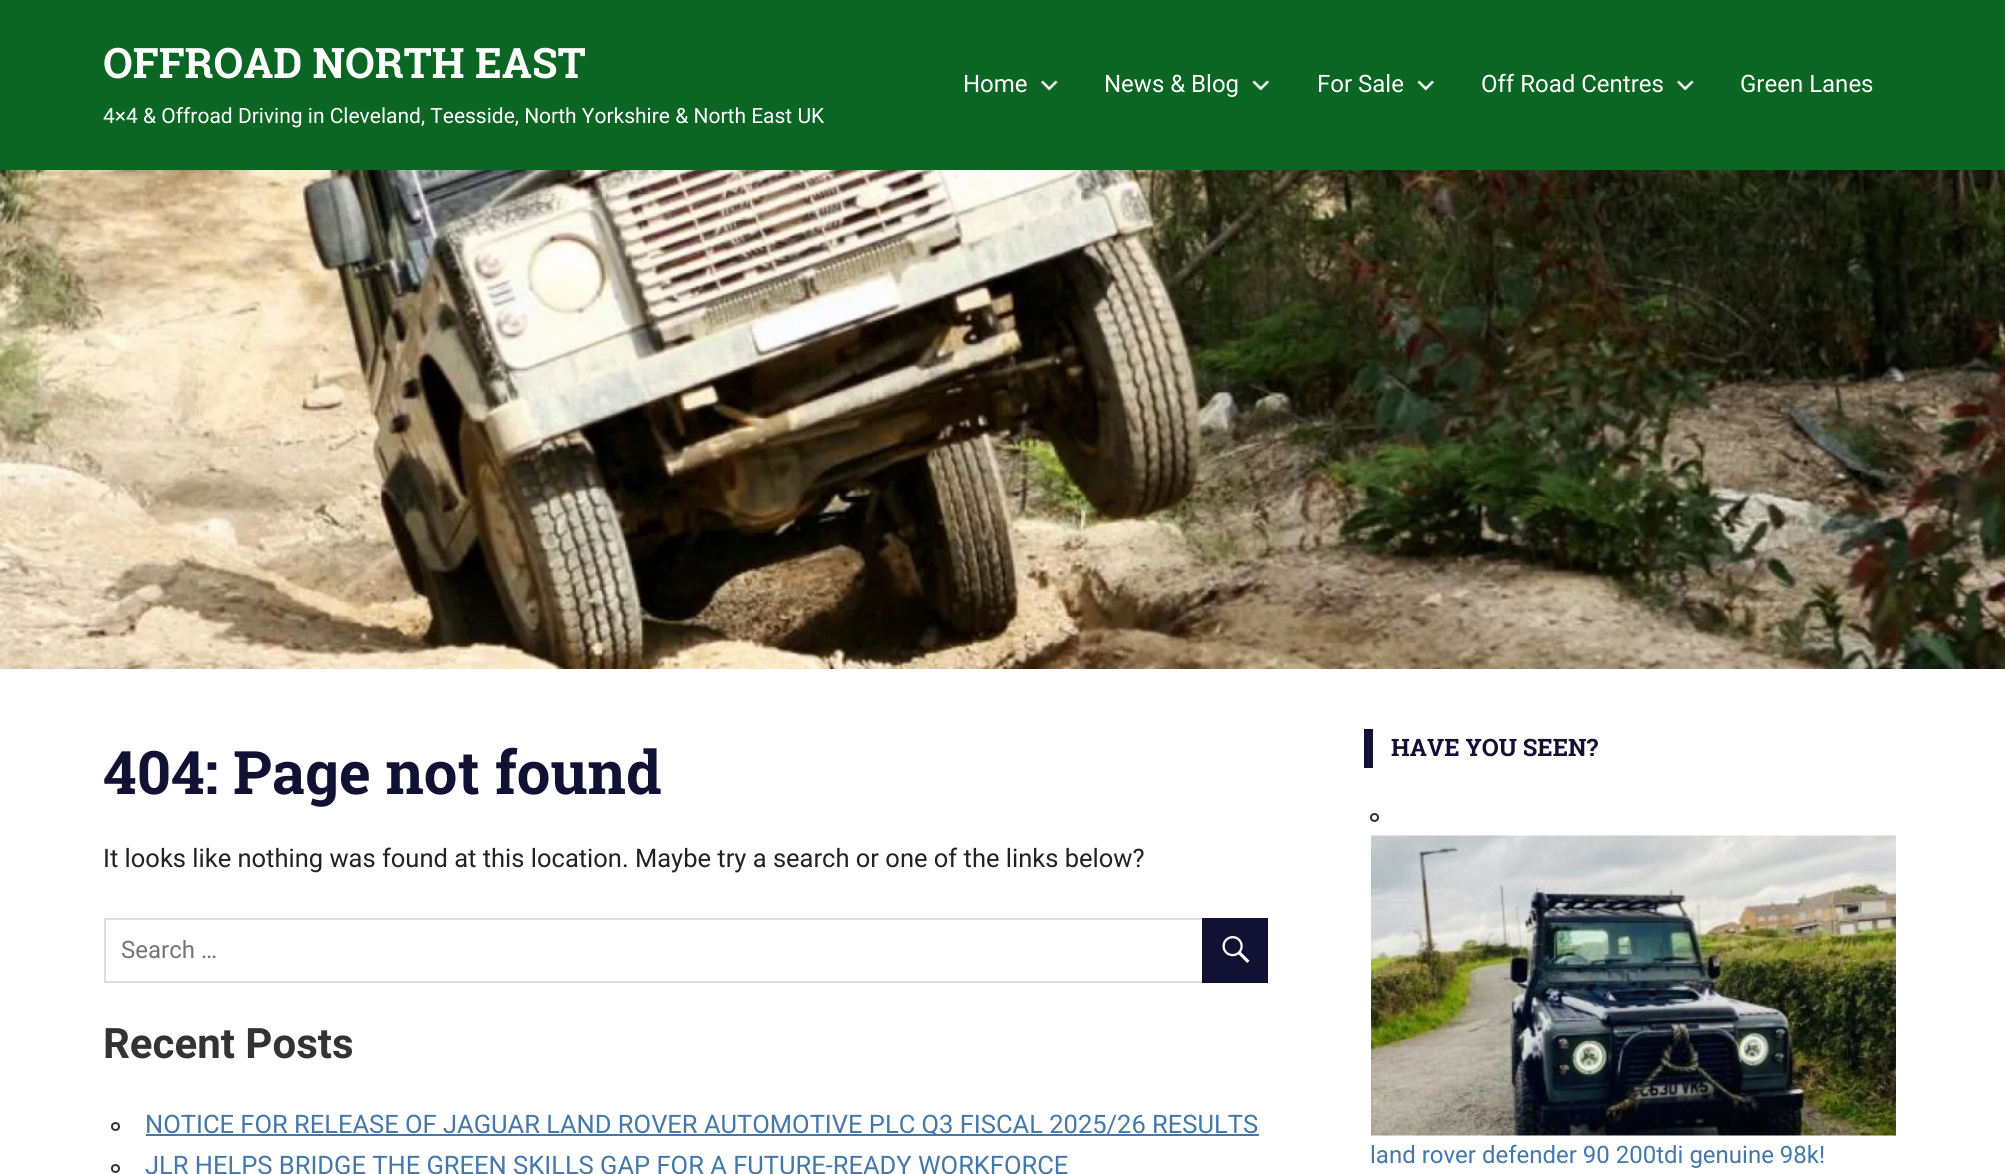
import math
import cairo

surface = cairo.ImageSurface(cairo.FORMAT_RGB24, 2005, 1174)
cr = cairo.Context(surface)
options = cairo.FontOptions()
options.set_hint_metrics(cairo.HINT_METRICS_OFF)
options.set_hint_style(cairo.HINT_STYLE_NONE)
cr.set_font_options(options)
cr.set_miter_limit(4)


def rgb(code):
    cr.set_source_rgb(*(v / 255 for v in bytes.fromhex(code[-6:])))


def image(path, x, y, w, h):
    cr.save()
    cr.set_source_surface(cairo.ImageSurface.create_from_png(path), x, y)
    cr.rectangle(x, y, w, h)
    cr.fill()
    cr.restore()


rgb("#ffffff")
cr.paint()
rgb("#0b6623")
cr.rectangle(0, 0, 2005, 170)
cr.fill()
image("img/1.png", 1040, 80, 18, 11)
image("img/2.png", 1252, 80, 18, 11)
image("img/2.png", 1417, 80, 18, 11)
image("img/1.png", 1676, 80, 18, 11)
image("img/3.png", 0, 170, 2005, 499)
cr.rectangle(105, 919, 1162, 63)
rgb("#dddddd")
cr.stroke()
rgb("#111133")
cr.rectangle(1202, 918, 66, 65)
cr.fill()
image("img/4.png", 1222, 936, 28, 27)
cr.arc(115.5, 1126.5, 3.5, 0, 2 * math.pi)
rgb("#333333")
cr.stroke()
rgb("#4477aa")
cr.rectangle(146, 1134, 1113, 2)
cr.fill()
cr.arc(115.5, 1168.5, 3.5, 0, 2 * math.pi)
rgb("#333333")
cr.stroke()
rgb("#111133")
cr.rectangle(1364, 729, 9, 39)
cr.fill()
cr.arc(1374.5, 817.5, 3.5, 0, 2 * math.pi)
rgb("#333333")
cr.stroke()
image("img/5.png", 1371, 835, 525, 301)
cr.select_font_face("Roboto Slab", cairo.FONT_SLANT_NORMAL, cairo.FONT_WEIGHT_BOLD)
cr.set_font_size(42)
rgb("#ffffff")
cr.move_to(103, 78)
cr.show_text("OFFROAD NORTH EAST")
cr.select_font_face("Roboto")
cr.set_font_size(21)
cr.move_to(103, 123)
cr.show_text("4×4 & Offroad Driving in Cleveland, Teesside, North Yorkshire & North East UK")
cr.set_font_size(24)
for x, y, s in [
    (963, 92, "Home"),
    (1104, 92, "News & Blog"),
    (1317, 92, "For Sale"),
    (1481, 92, "Off Road Centres"),
    (1740, 92, "Green Lanes"),
]:
    cr.move_to(x, y)
    cr.show_text(s)
cr.select_font_face("Roboto Slab", cairo.FONT_SLANT_NORMAL, cairo.FONT_WEIGHT_BOLD)
cr.set_font_size(60)
rgb("#111133")
cr.move_to(103, 794)
cr.show_text("404: Page not found")
cr.select_font_face("Roboto")
cr.set_font_size(25.5)
rgb("#222222")
cr.move_to(103, 867)
cr.show_text("It looks like nothing was found at this location. Maybe try a search or one of the links below?")
cr.set_font_size(24)
rgb("#757575")
cr.move_to(121, 958)
cr.show_text("Search …")
cr.select_font_face("Roboto", cairo.FONT_SLANT_NORMAL, cairo.FONT_WEIGHT_BOLD)
cr.set_font_size(42)
rgb("#333333")
cr.move_to(103, 1058)
cr.show_text("Recent Posts")
cr.select_font_face("Roboto")
cr.set_font_size(25.5)
rgb("#4477aa")
cr.move_to(145, 1133)
cr.show_text("NOTICE FOR RELEASE OF JAGUAR LAND ROVER AUTOMOTIVE PLC Q3 FISCAL 2025/26 RESULTS")
cr.move_to(145, 1174)
cr.show_text("JLR HELPS BRIDGE THE GREEN SKILLS GAP FOR A FUTURE-READY WORKFORCE")
cr.select_font_face("Roboto Slab", cairo.FONT_SLANT_NORMAL, cairo.FONT_WEIGHT_BOLD)
cr.set_font_size(24)
rgb("#111133")
cr.move_to(1391, 756)
cr.show_text("HAVE YOU SEEN?")
cr.select_font_face("Roboto")
rgb("#4477aa")
cr.move_to(1370, 1163)
cr.show_text("land rover defender 90 200tdi genuine 98k!")
surface.write_to_png("page.png")
